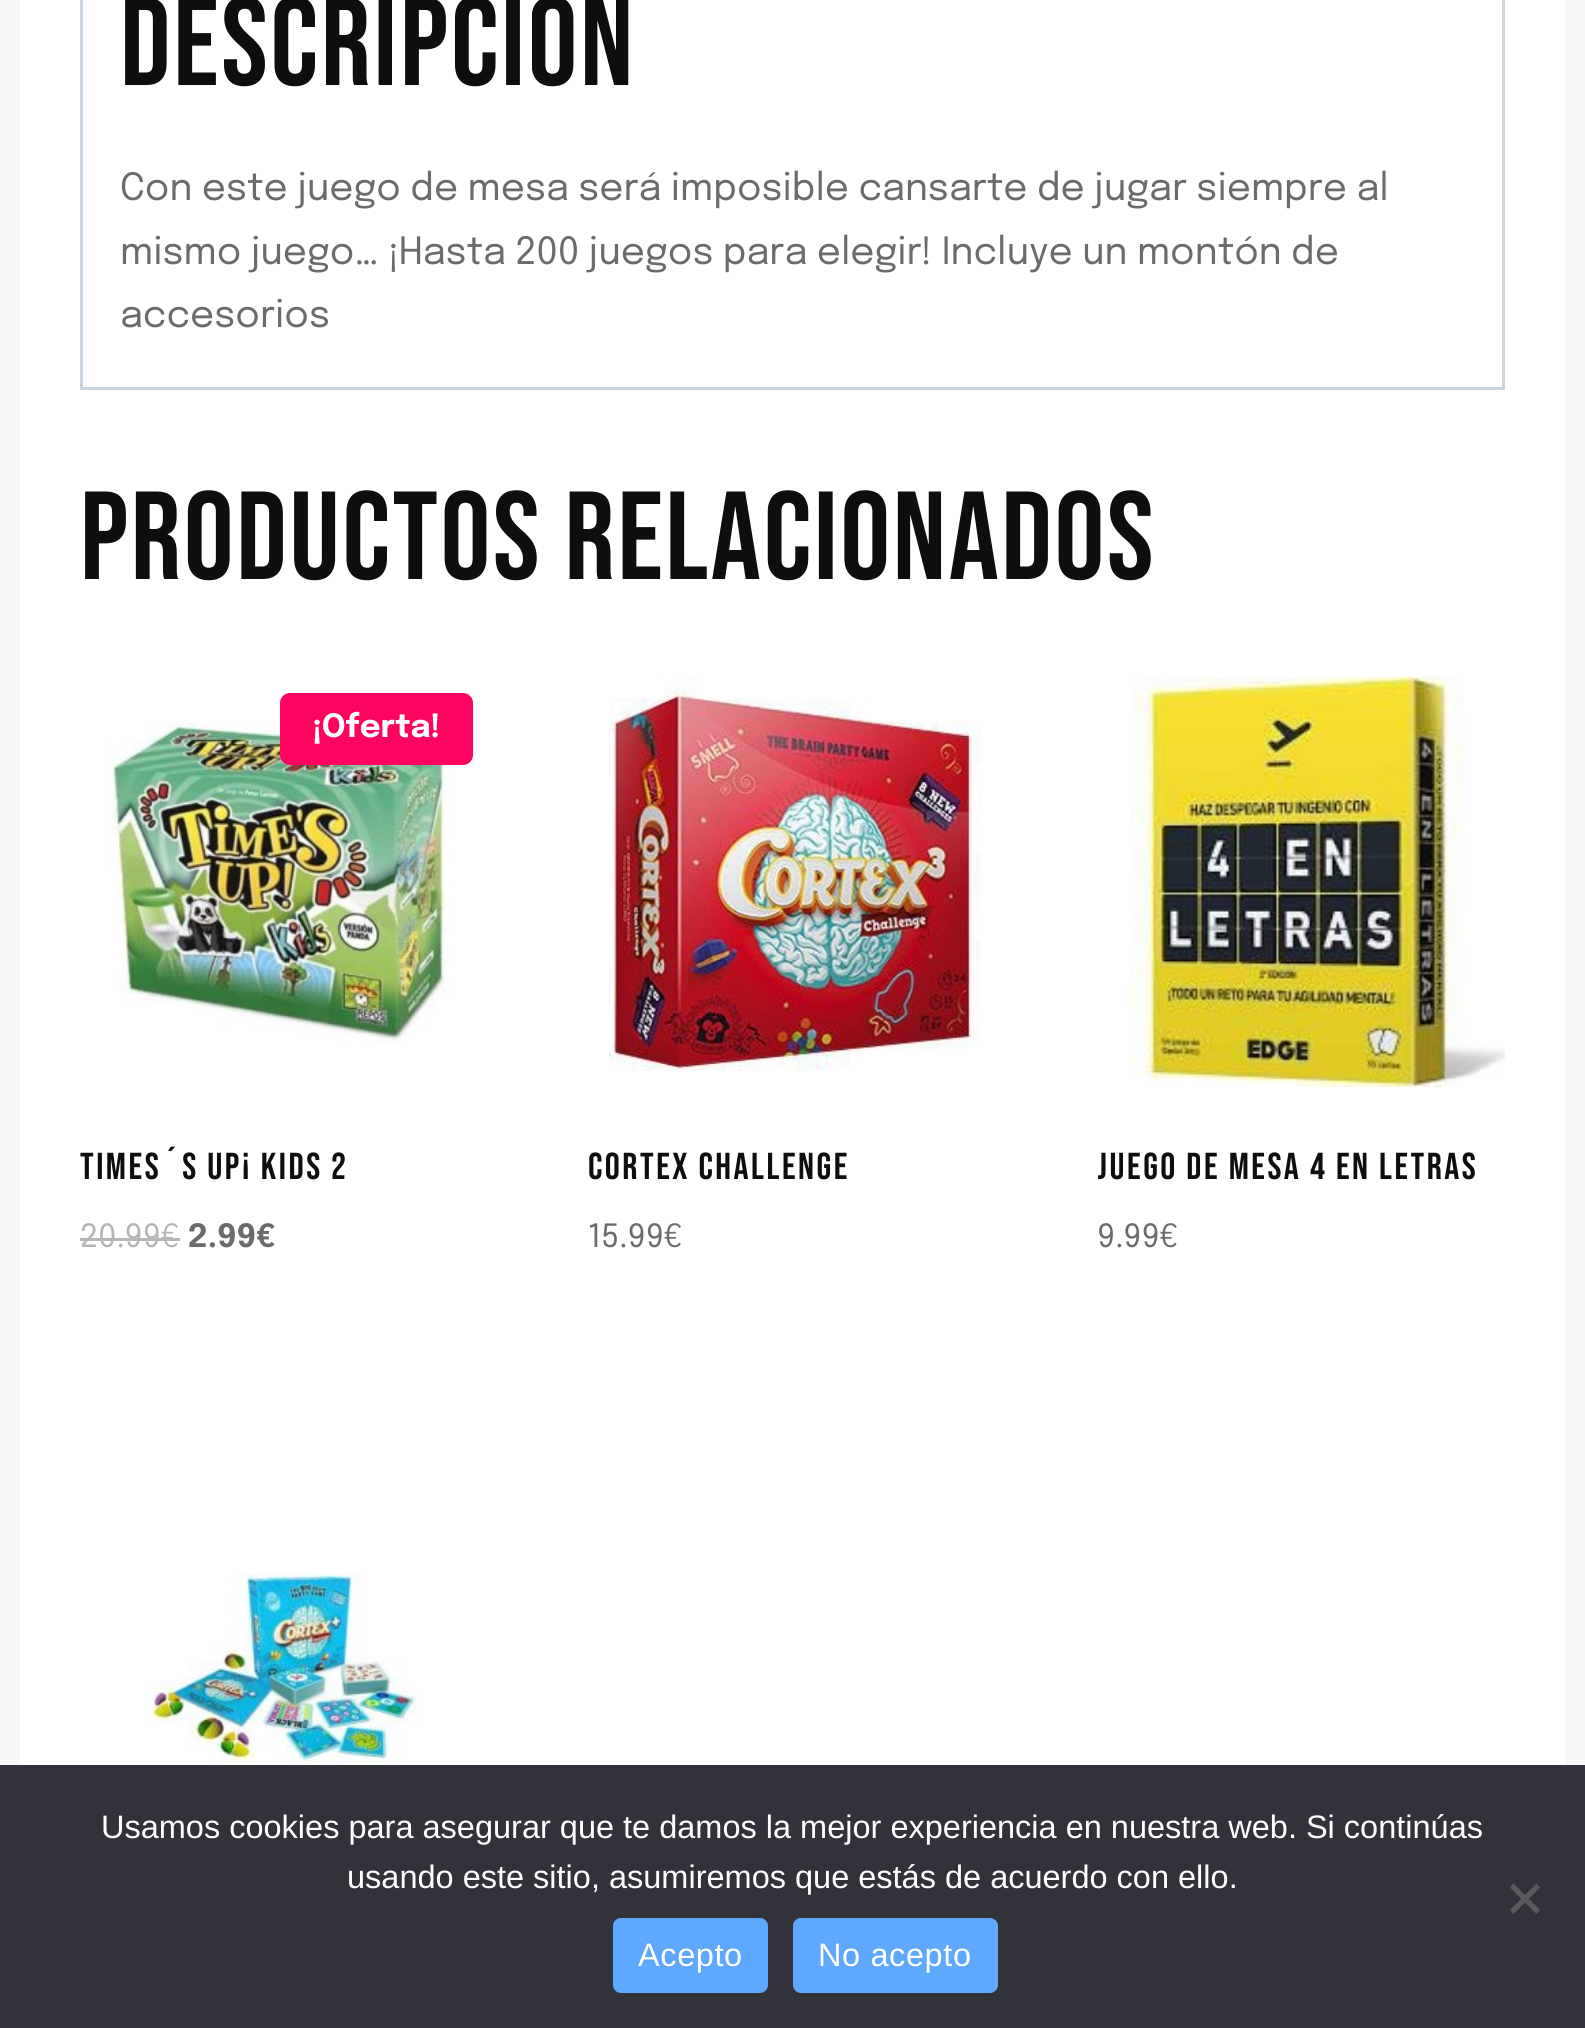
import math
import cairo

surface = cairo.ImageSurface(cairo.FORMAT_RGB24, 1585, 2028)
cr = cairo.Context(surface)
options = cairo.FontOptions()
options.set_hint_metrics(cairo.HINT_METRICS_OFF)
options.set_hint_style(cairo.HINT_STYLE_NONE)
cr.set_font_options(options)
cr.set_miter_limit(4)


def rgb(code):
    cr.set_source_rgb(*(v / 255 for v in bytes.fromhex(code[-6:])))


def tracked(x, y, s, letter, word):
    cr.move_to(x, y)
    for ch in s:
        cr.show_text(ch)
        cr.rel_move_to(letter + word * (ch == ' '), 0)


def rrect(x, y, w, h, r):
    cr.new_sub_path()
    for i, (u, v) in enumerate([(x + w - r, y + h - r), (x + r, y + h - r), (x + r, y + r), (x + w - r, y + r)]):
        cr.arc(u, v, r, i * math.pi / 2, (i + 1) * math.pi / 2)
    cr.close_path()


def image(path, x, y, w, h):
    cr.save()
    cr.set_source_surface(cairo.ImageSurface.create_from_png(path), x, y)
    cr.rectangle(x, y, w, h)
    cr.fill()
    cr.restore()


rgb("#f8f8f8")
cr.paint()
rgb("#ffffff")
cr.rectangle(20, 0, 1545, 1765)
cr.fill()
cr.rectangle(81.5, -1.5, 1422, 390)
rgb("#cbd5e0")
cr.set_line_width(3)
cr.stroke()
image("img/1.png", 104, 720, 346, 324)
rgb("#fd0461")
rrect(280, 693, 193, 72, 10)
cr.fill()
rgb("#b5b5b5")
cr.rectangle(80, 1238, 100, 3)
cr.fill()
image("img/2.png", 609, 677, 372, 395)
image("img/3.png", 1130, 677, 375, 410)
image("img/4.png", 145, 1572, 278, 193)
rgb("#32323a")
cr.rectangle(0, 1765, 1585, 263)
cr.fill()
rgb("#59595d")
cr.new_path()
cr.move_to(1536.5, 1883.5)
cr.line_to(1540, 1887.5)
cr.line_to(1513.5, 1914)
cr.line_to(1510, 1910)
cr.close_path()
cr.fill()
cr.new_path()
cr.move_to(1510, 1887.5)
cr.line_to(1513.5, 1883.5)
cr.line_to(1540, 1910)
cr.line_to(1536.5, 1914)
cr.close_path()
cr.fill()
rgb("#5ea8ff")
rrect(613, 1918, 155, 75, 8)
cr.fill()
rrect(793, 1918, 205, 75, 8)
cr.fill()
cr.select_font_face("Bebas Neue")
cr.set_font_size(125)
rgb("#0e0e0e")
tracked(120, 85, "DESCRIPCIÓN", 2.5, 0)
cr.select_font_face("Epilogue")
cr.set_font_size(37.5)
rgb("#6b6b6b")
for x, y, s in [
    (120, 200, "Con este juego de mesa será imposible cansarte de jugar siempre al"),
    (120, 264, "mismo juego… ¡Hasta 200 juegos para elegir! Incluye un montón de"),
    (120, 327, "accesorios"),
]:
    cr.move_to(x, y)
    cr.show_text(s)
cr.select_font_face("Bebas Neue")
cr.set_font_size(125)
rgb("#0e0e0e")
tracked(80, 579, "PRODUCTOS RELACIONADOS", 2.5, 0)
cr.select_font_face("Epilogue", cairo.FONT_SLANT_NORMAL, cairo.FONT_WEIGHT_BOLD)
cr.set_font_size(32)
rgb("#ffffff")
cr.move_to(312, 737)
cr.show_text("¡Oferta!")
cr.select_font_face("Bebas Neue")
cr.set_font_size(37.5)
rgb("#0e0e0e")
tracked(80, 1179, "TIMES´S UP¡ KIDS 2", 2.5, 0)
cr.select_font_face("Epilogue")
cr.set_font_size(32)
rgb("#b5b5b5")
cr.move_to(80, 1247)
cr.show_text("20.99€")
cr.select_font_face("Epilogue", cairo.FONT_SLANT_NORMAL, cairo.FONT_WEIGHT_BOLD)
rgb("#6b6b6b")
cr.move_to(188, 1247)
cr.show_text("2.99€")
cr.select_font_face("Bebas Neue")
cr.set_font_size(37.5)
rgb("#0e0e0e")
tracked(588, 1179, "CORTEX CHALLENGE", 2.5, 0)
cr.select_font_face("Epilogue")
cr.set_font_size(32)
rgb("#6b6b6b")
cr.move_to(588, 1247)
cr.show_text("15.99€")
cr.save()
rrect(1098, 678, 407, 687, 10)
cr.clip()
cr.select_font_face("Bebas Neue")
cr.set_font_size(37.5)
rgb("#0e0e0e")
tracked(1097, 1179, "JUEGO DE MESA 4 EN LETRAS", 2.5, 0)
cr.restore()
cr.move_to(1097, 1247)
cr.show_text("9.99€")
cr.select_font_face("Liberation Sans")
cr.set_font_size(32.5)
rgb("#ffffff")
cr.move_to(101, 1838)
cr.show_text("Usamos cookies para asegurar que te damos la mejor experiencia en nuestra web. Si continúas")
cr.move_to(347, 1888)
cr.show_text("usando este sitio, asumiremos que estás de acuerdo con ello.")
tracked(638, 1966, "Acepto", 0.6, 0)
tracked(818, 1966, "No acepto", 0.6, 0)
surface.write_to_png("page.png")
